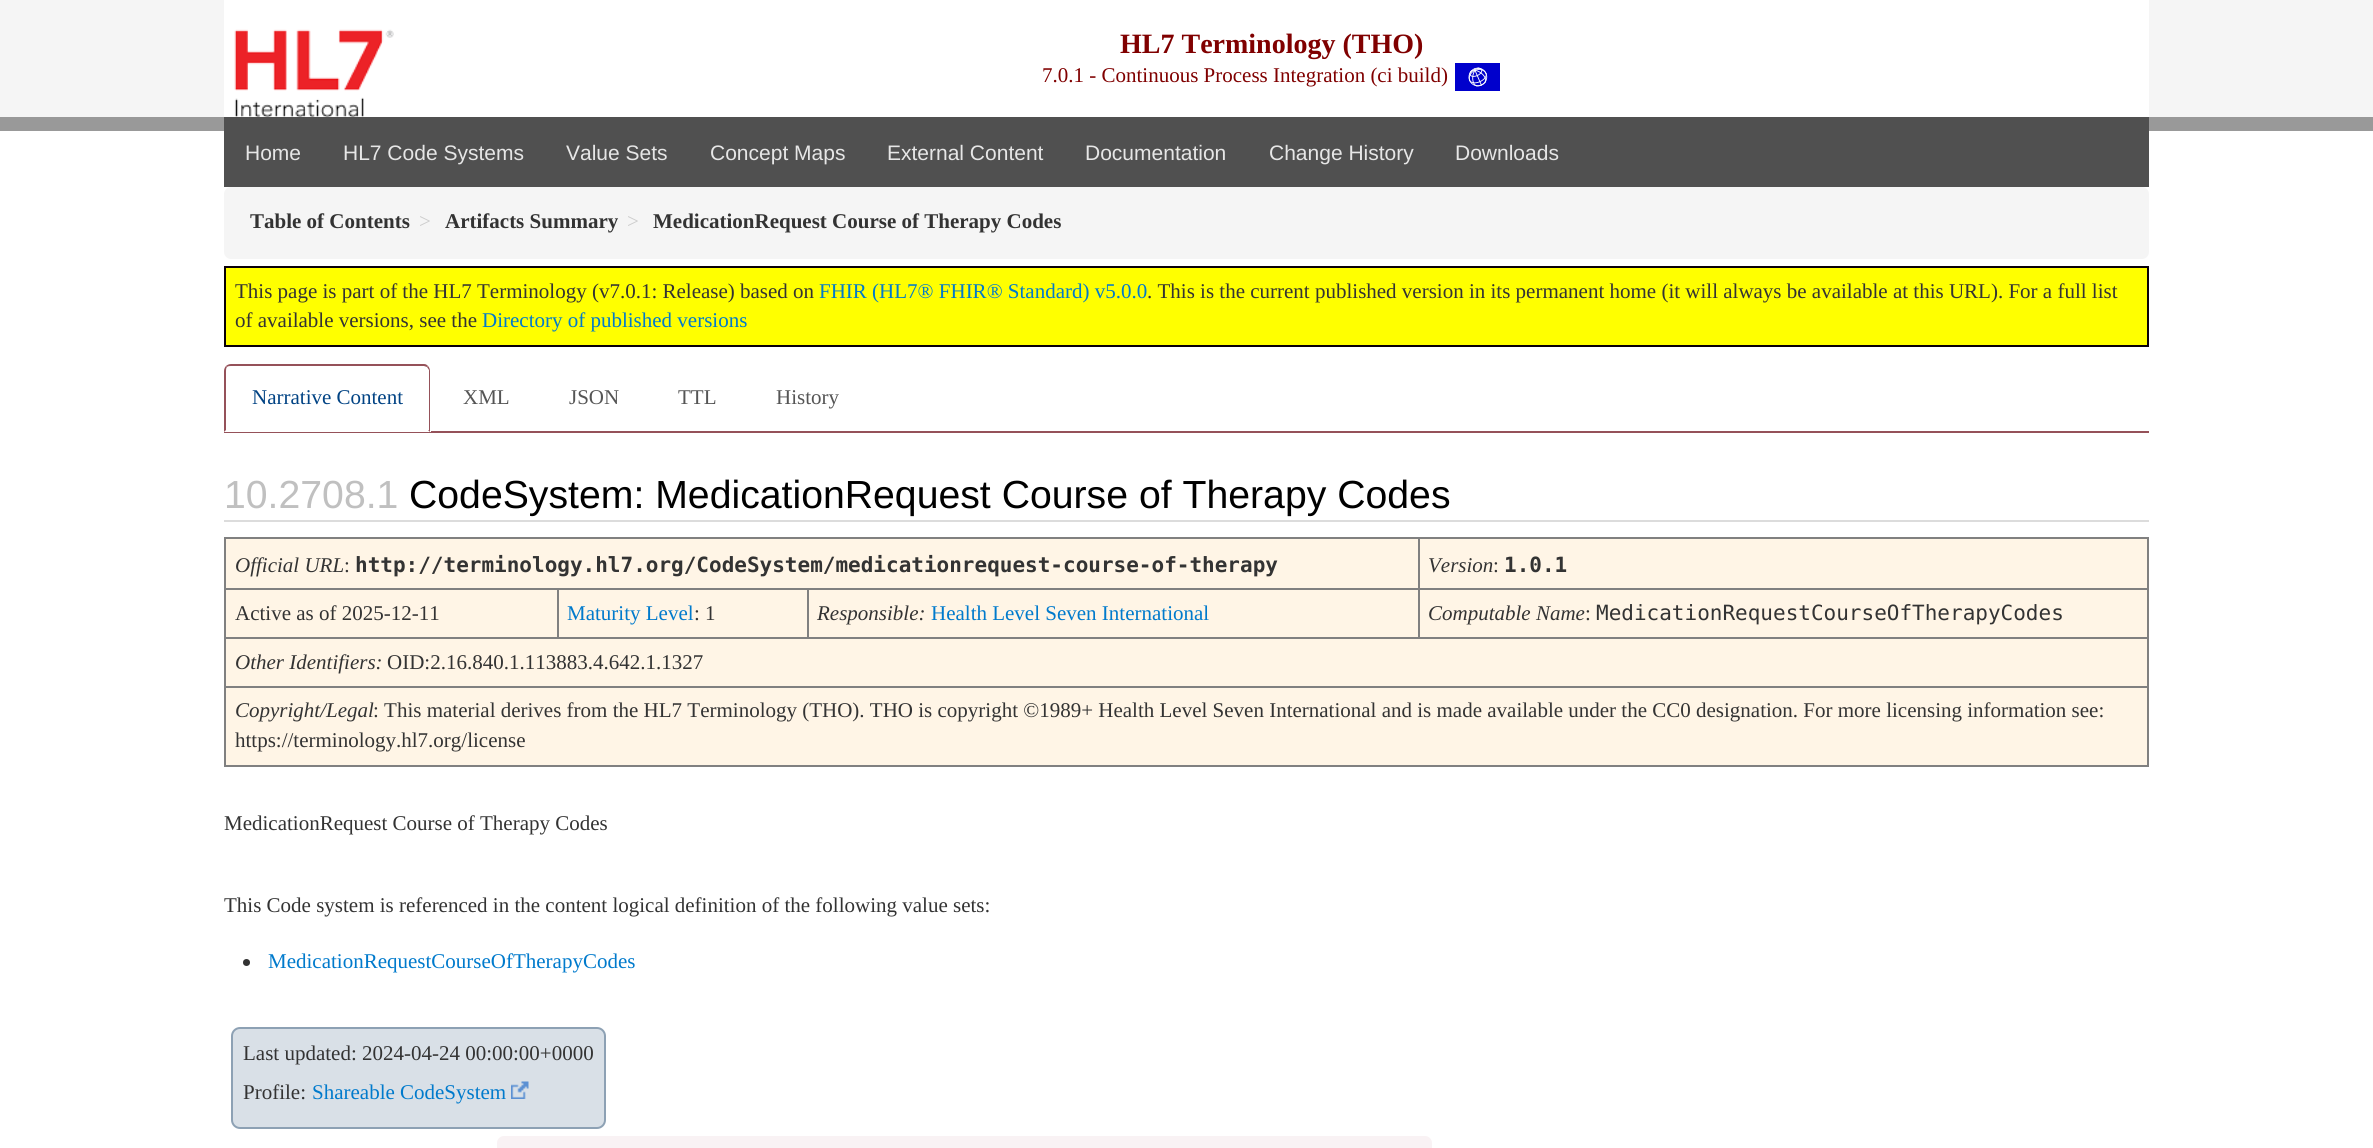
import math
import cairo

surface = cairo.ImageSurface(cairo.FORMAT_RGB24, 2373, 1148)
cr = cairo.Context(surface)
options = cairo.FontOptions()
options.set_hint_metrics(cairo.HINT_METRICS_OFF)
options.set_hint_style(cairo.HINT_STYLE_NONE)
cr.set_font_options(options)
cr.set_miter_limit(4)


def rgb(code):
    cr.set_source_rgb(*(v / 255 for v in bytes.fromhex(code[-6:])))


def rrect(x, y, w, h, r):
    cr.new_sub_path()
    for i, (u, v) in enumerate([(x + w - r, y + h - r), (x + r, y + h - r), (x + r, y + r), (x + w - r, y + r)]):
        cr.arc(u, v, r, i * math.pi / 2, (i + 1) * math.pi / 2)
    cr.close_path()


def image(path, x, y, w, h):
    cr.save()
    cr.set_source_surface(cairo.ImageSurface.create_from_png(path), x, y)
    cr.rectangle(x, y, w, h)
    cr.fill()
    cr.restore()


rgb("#ffffff")
cr.paint()
rgb("#f5f5f5")
cr.rectangle(0, 0, 2373, 117)
cr.fill()
rgb("#ffffff")
cr.rectangle(224, 0, 1925, 117)
cr.fill()
image("img/1.png", 234, 29, 160, 88)
image("img/2.png", 1455, 63, 45, 28)
rgb("#999999")
cr.rectangle(0, 117, 2373, 14)
cr.fill()
rgb("#505050")
cr.rectangle(224, 117, 1925, 70)
cr.fill()
rgb("#f5f5f5")
rrect(224, 187, 1925, 72, 7)
cr.fill()
rgb("#ffff00")
cr.rectangle(225, 267, 1923, 79)
cr.fill_preserve()
rgb("#0a0008")
cr.stroke()
rgb("#955159")
cr.rectangle(224, 431, 1925, 2)
cr.fill()
rgb("#ffffff")
cr.new_path()
cr.move_to(231, 364)
cr.line_to(424, 364)
cr.curve_to(428, 364, 431, 367, 431, 371)
cr.line_to(431, 432)
cr.line_to(224, 432)
cr.line_to(224, 371)
cr.curve_to(224, 367, 227, 364, 231, 364)
cr.close_path()
cr.fill()
rgb("#955159")
cr.new_path()
cr.move_to(231, 364)
cr.curve_to(229, 364, 227, 365, 226, 366)
cr.line_to(227, 367)
cr.curve_to(228, 366, 230, 366, 231, 366)
cr.line_to(424, 366)
cr.line_to(427, 367)
cr.line_to(428, 366)
cr.curve_to(427, 365, 426, 364, 424, 364)
cr.close_path()
cr.fill()
cr.new_path()
cr.move_to(428, 366)
cr.curve_to(429, 367, 430, 369, 430, 371)
cr.line_to(430, 432)
cr.line_to(428, 430)
cr.line_to(429, 430)
cr.line_to(429, 370)
cr.line_to(427, 367)
cr.close_path()
cr.fill()
cr.new_path()
cr.move_to(224, 371)
cr.line_to(224, 432)
cr.line_to(226, 430)
cr.line_to(226, 371)
cr.curve_to(226, 370, 226, 368, 227, 367)
cr.line_to(226, 366)
cr.curve_to(225, 367, 224, 369, 224, 371)
cr.close_path()
cr.fill()
for x, y, w, h, color in [
    (224, 520, 1925, 2, "#dcdcdc"),
    (226, 539, 1192, 49, "#fff5e6"),
    (1418, 537, 731, 2, "#808080"),
    (1418, 588, 731, 2, "#808080"),
    (224, 637, 1925, 2, "#808080"),
    (1418, 588, 2, 51, "#808080"),
    (807, 588, 612, 2, "#808080"),
    (1418, 537, 2, 53, "#808080"),
    (224, 537, 1195, 2, "#808080"),
    (807, 588, 2, 51, "#808080"),
    (557, 588, 252, 2, "#808080"),
    (557, 588, 2, 51, "#808080"),
    (224, 588, 334, 2, "#808080"),
    (224, 686, 1925, 2, "#808080"),
    (2147, 686, 2, 81, "#808080"),
    (224, 765, 1925, 2, "#808080"),
    (224, 686, 2, 81, "#808080"),
    (224, 637, 2, 51, "#808080"),
    (224, 588, 2, 51, "#808080"),
    (224, 537, 2, 53, "#808080"),
    (1420, 539, 727, 49, "#fff5e6"),
    (2147, 637, 2, 51, "#808080"),
    (2147, 588, 2, 51, "#808080"),
    (2147, 537, 2, 53, "#808080"),
    (226, 590, 331, 47, "#fff5e6"),
    (559, 590, 248, 47, "#fff5e6"),
    (809, 590, 609, 47, "#fff5e6"),
    (1420, 590, 727, 47, "#fff5e6"),
    (226, 639, 1921, 47, "#fff5e6"),
    (226, 688, 1921, 77, "#fff5e6"),
]:
    rgb(color)
    cr.rectangle(x, y, w, h)
    cr.fill()
rgb("#333333")
cr.arc(246.5, 962.5, 3.5, 0, 2 * math.pi)
cr.fill()
rgb("#d9e0e7")
rrect(232, 1028, 373, 100, 8)
cr.fill_preserve()
rgb("#8da1b4")
cr.stroke()
image("img/3.png", 511, 1081, 18, 18)
rgb("#f9f2f4")
rrect(497, 1136, 935, 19, 7)
cr.fill()
cr.select_font_face("Liberation Serif", cairo.FONT_SLANT_NORMAL, cairo.FONT_WEIGHT_BOLD)
cr.set_font_size(28)
rgb("#800000")
cr.move_to(1120, 53)
cr.show_text("HL7 Terminology (THO)")
cr.select_font_face("Liberation Serif")
cr.set_font_size(21)
cr.move_to(1042, 82)
cr.show_text("7.0.1 - Continuous Process Integration (ci build)")
cr.select_font_face("Liberation Sans")
rgb("#e6e6e6")
for x, y, s in [
    (245, 160, "Home"),
    (343, 160, "HL7 Code Systems"),
    (566, 160, "Value Sets"),
    (710, 160, "Concept Maps"),
    (887, 160, "External Content"),
    (1085, 160, "Documentation"),
    (1269, 160, "Change History"),
    (1455, 160, "Downloads"),
]:
    cr.move_to(x, y)
    cr.show_text(s)
cr.select_font_face("Liberation Serif", cairo.FONT_SLANT_NORMAL, cairo.FONT_WEIGHT_BOLD)
rgb("#333333")
cr.move_to(250, 228)
cr.show_text("Table of Contents")
cr.select_font_face("Liberation Serif")
rgb("#cccccc")
cr.move_to(419, 228)
cr.show_text(">")
cr.select_font_face("Liberation Serif", cairo.FONT_SLANT_NORMAL, cairo.FONT_WEIGHT_BOLD)
rgb("#333333")
cr.move_to(445, 228)
cr.show_text("Artifacts Summary")
cr.select_font_face("Liberation Serif")
rgb("#cccccc")
cr.move_to(627, 228)
cr.show_text(">")
cr.select_font_face("Liberation Serif", cairo.FONT_SLANT_NORMAL, cairo.FONT_WEIGHT_BOLD)
rgb("#333333")
cr.move_to(653, 228)
cr.show_text("MedicationRequest Course of Therapy Codes")
cr.select_font_face("Liberation Serif")
cr.move_to(235, 298)
cr.show_text("This page is part of the HL7 Terminology (v7.0.1: Release) based on")
rgb("#007acc")
cr.move_to(819, 298)
cr.show_text("FHIR (HL7® FHIR® Standard) v5.0.0")
rgb("#333333")
cr.move_to(1147, 298)
cr.show_text(". This is the current published version in its permanent home (it will always be available at this URL). For a full list")
cr.move_to(235, 327)
cr.show_text("of available versions, see the")
rgb("#007acc")
cr.move_to(482, 327)
cr.show_text("Directory of published versions")
rgb("#014384")
cr.move_to(252, 404)
cr.show_text("Narrative Content")
rgb("#555555")
for x, y, s in [
    (463, 404, "XML"),
    (569, 404, "JSON"),
    (678, 404, "TTL"),
    (776, 404, "History"),
]:
    cr.move_to(x, y)
    cr.show_text(s)
cr.select_font_face("Liberation Sans")
cr.set_font_size(39.2)
rgb("#c0c0c0")
cr.move_to(224, 508)
cr.show_text("10.2708.1")
rgb("#000000")
cr.move_to(409, 508)
cr.show_text("CodeSystem: MedicationRequest Course of Therapy Codes")
cr.select_font_face("Liberation Serif", cairo.FONT_SLANT_ITALIC)
cr.set_font_size(21)
rgb("#333333")
cr.move_to(235, 572)
cr.show_text("Official URL")
cr.select_font_face("Liberation Serif")
cr.move_to(344, 572)
cr.show_text(":")
cr.select_font_face("DejaVu Sans Mono", cairo.FONT_SLANT_NORMAL, cairo.FONT_WEIGHT_BOLD)
cr.move_to(355, 572)
cr.show_text("http://terminology.hl7.org/CodeSystem/medicationrequest-course-of-therapy")
cr.select_font_face("Liberation Serif", cairo.FONT_SLANT_ITALIC)
cr.move_to(1428, 572)
cr.show_text("Version")
cr.select_font_face("Liberation Serif")
cr.move_to(1493, 572)
cr.show_text(":")
cr.select_font_face("DejaVu Sans Mono", cairo.FONT_SLANT_NORMAL, cairo.FONT_WEIGHT_BOLD)
cr.move_to(1504, 572)
cr.show_text("1.0.1")
cr.select_font_face("Liberation Serif")
cr.move_to(235, 620)
cr.show_text("Active as of 2025-12-11")
rgb("#007acc")
cr.move_to(567, 620)
cr.show_text("Maturity Level")
rgb("#333333")
cr.move_to(694, 620)
cr.show_text(": 1")
cr.select_font_face("Liberation Serif", cairo.FONT_SLANT_ITALIC)
cr.move_to(817, 620)
cr.show_text("Responsible:")
cr.select_font_face("Liberation Serif")
rgb("#007acc")
cr.move_to(931, 620)
cr.show_text("Health Level Seven International")
cr.select_font_face("Liberation Serif", cairo.FONT_SLANT_ITALIC)
rgb("#333333")
cr.move_to(1428, 620)
cr.show_text("Computable Name")
cr.select_font_face("Liberation Serif")
cr.move_to(1585, 620)
cr.show_text(":")
cr.select_font_face("DejaVu Sans Mono")
cr.move_to(1596, 620)
cr.show_text("MedicationRequestCourseOfTherapyCodes")
cr.select_font_face("Liberation Serif", cairo.FONT_SLANT_ITALIC)
cr.move_to(235, 669)
cr.show_text("Other Identifiers:")
cr.select_font_face("Liberation Serif")
cr.move_to(387, 669)
cr.show_text("OID:2.16.840.1.113883.4.642.1.1327")
cr.select_font_face("Liberation Serif", cairo.FONT_SLANT_ITALIC)
cr.move_to(235, 717)
cr.show_text("Copyright/Legal")
cr.select_font_face("Liberation Serif")
for x, y, s in [
    (373, 717, ": This material derives from the HL7 Terminology (THO). THO is copyright ©1989+ Health Level Seven International and is made available under the CC0 designation. For more licensing information see:"),
    (235, 747, "https://terminology.hl7.org/license"),
    (224, 830, "MedicationRequest Course of Therapy Codes"),
    (224, 912, "This Code system is referenced in the content logical definition of the following value sets:"),
]:
    cr.move_to(x, y)
    cr.show_text(s)
rgb("#007acc")
cr.move_to(268, 968)
cr.show_text("MedicationRequestCourseOfTherapyCodes")
rgb("#333333")
cr.move_to(243, 1060)
cr.show_text("Last updated: 2024-04-24 00:00:00+0000")
cr.move_to(243, 1099)
cr.show_text("Profile:")
rgb("#007acc")
cr.move_to(312, 1099)
cr.show_text("Shareable CodeSystem")
surface.write_to_png("page.png")
